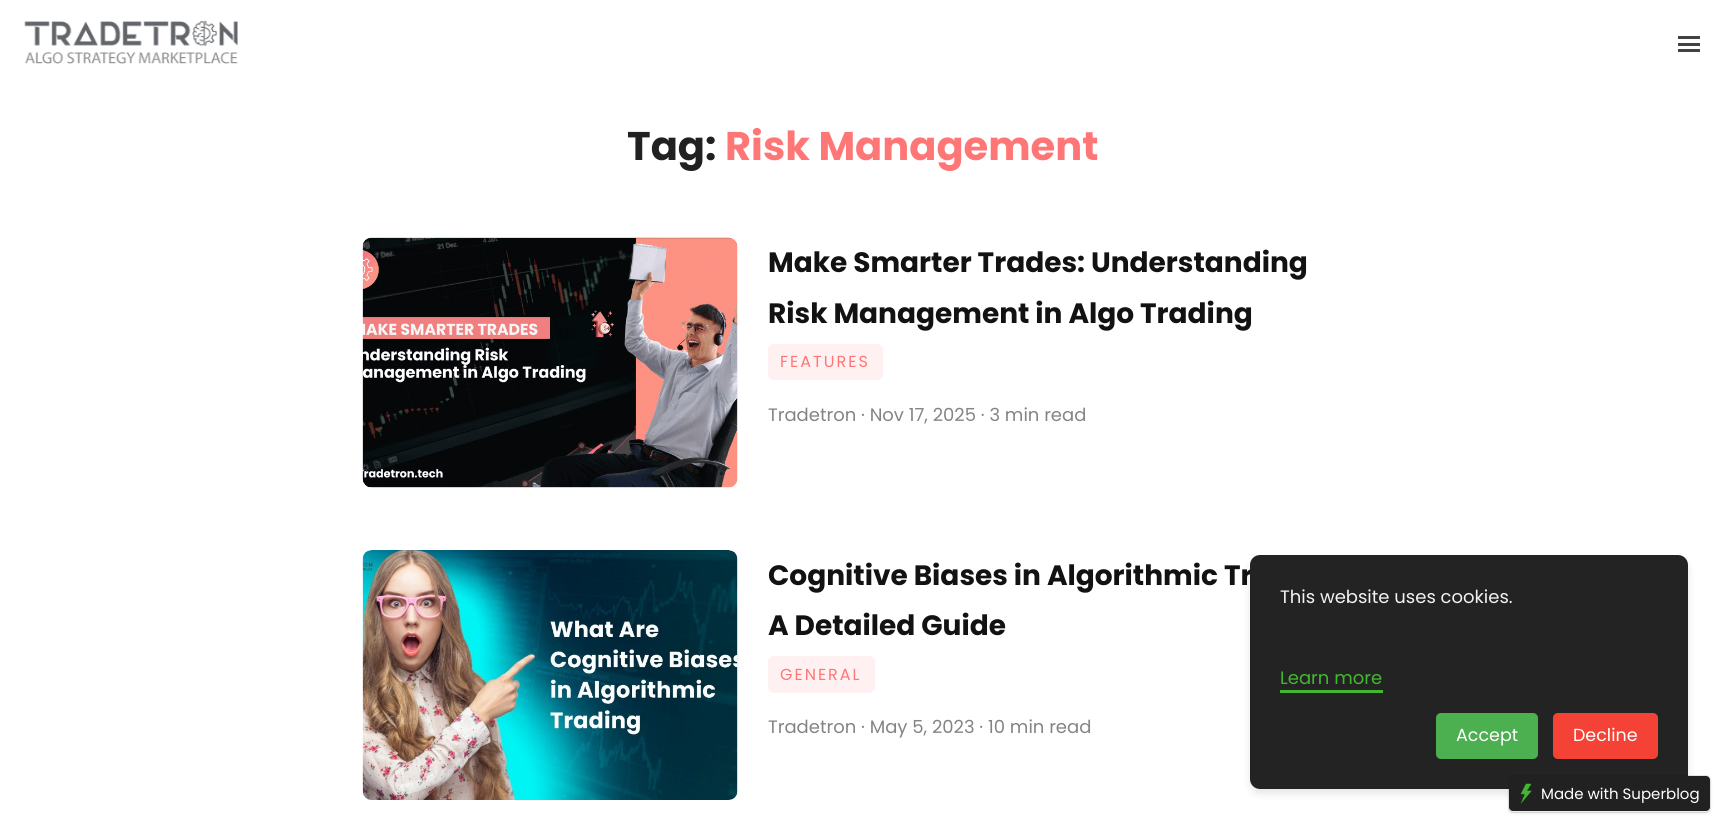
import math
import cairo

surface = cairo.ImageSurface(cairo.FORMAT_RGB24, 1725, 826)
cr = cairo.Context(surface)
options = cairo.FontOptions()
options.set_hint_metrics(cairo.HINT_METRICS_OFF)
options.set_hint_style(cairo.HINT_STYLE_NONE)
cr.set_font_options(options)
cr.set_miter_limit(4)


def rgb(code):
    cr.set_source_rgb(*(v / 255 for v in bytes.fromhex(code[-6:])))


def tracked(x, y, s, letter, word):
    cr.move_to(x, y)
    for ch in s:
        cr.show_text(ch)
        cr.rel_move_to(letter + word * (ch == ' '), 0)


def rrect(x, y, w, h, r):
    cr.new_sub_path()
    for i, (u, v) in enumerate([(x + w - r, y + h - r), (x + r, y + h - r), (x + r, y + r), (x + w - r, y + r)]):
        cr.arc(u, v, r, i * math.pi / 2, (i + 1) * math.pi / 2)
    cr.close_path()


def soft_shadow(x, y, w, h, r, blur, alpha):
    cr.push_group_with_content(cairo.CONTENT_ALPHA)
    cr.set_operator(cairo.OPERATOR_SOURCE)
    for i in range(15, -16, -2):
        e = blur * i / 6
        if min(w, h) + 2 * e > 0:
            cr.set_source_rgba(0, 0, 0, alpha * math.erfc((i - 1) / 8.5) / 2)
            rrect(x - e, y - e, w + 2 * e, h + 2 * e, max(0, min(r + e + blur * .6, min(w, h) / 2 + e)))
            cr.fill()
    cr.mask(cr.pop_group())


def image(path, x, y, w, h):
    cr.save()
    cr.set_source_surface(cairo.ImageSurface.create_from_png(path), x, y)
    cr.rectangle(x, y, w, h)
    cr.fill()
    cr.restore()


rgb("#ffffff")
cr.paint()
image("img/1.png", 24, 20, 214, 44)
for x, y, w, h, color in [
    (1678, 43, 22, 3, "#424242"),
    (1678, 36, 22, 3, "#424242"),
    (1678, 49, 22, 3, "#424242"),
]:
    rgb(color)
    cr.rectangle(x, y, w, h)
    cr.fill()
rgb("#f8f8ff")
rrect(363, 238, 375, 250, 9)
cr.fill()
cr.save()
rrect(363, 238, 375, 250, 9)
cr.clip()
rgb("#96aab4")
soft_shadow(375, 259, 350, 225, 0, 19, 0.25)
cr.restore()
image("img/2.png", 362, 237, 376, 251)
rgb("#fff1f1")
rrect(768, 344, 115, 36, 6)
cr.fill()
rgb("#f8f8ff")
rrect(363, 550, 375, 250, 9)
cr.fill()
cr.save()
rrect(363, 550, 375, 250, 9)
cr.clip()
rgb("#96aab4")
soft_shadow(375, 571, 350, 225, 0, 19, 0.25)
cr.restore()
image("img/3.png", 362, 550, 376, 250)
rgb("#fff1f1")
rrect(768, 656, 107, 37, 6)
cr.fill()
rgb("#000000")
soft_shadow(1250, 560, 438, 234, 10, 4, 0.1)
cr.select_font_face("Poppins", cairo.FONT_SLANT_NORMAL, cairo.FONT_WEIGHT_BOLD)
cr.set_font_size(40)
rgb("#212121")
cr.move_to(627, 160)
cr.show_text("Tag:")
rgb("#ff7676")
cr.move_to(725, 160)
cr.show_text("Risk Management")
cr.set_font_size(28)
rgb("#121212")
cr.move_to(768, 272)
cr.show_text("Make Smarter Trades: Understanding")
cr.move_to(768, 323)
cr.show_text("Risk Management in Algo Trading")
cr.select_font_face("Poppins")
cr.set_font_size(16)
rgb("#ff7676")
tracked(780, 367, "FEATURES", 2, 0)
cr.set_font_size(18)
rgb("#848484")
cr.move_to(768, 421)
cr.show_text("Tradetron · Nov 17, 2025 · 3 min read")
cr.select_font_face("Poppins", cairo.FONT_SLANT_NORMAL, cairo.FONT_WEIGHT_BOLD)
cr.set_font_size(28)
rgb("#121212")
cr.move_to(768, 585)
cr.show_text("Cognitive Biases in Algorithmic Tr")
cr.move_to(768, 635)
cr.show_text("A Detailed Guide")
cr.select_font_face("Poppins")
cr.set_font_size(16)
rgb("#ff7676")
tracked(780, 680, "GENERAL", 2, 0)
cr.set_font_size(18)
rgb("#848484")
cr.move_to(768, 733)
cr.show_text("Tradetron · May 5, 2023 · 10 min read")
rgb("#232323")
rrect(1250, 555, 438, 234, 10)
cr.fill()
rgb("#000000")
soft_shadow(1509, 778, 201, 35, 4, 2, 0.1)
rrect(1508.5, 775.5, 202, 37, 4.5)
cr.set_source_rgba(0, 0, 0, 0.1)
cr.set_line_width(1)
cr.stroke()
rgb("#212121")
rrect(1509, 776, 201, 35, 4)
cr.fill()
cr.set_font_size(15)
rgb("#ffffff")
cr.move_to(1541, 799)
cr.show_text("Made with Superblog")
image("img/4.png", 1520, 783, 12, 21)
cr.set_font_size(18)
rgb("#f2f2f2")
cr.move_to(1280, 603)
cr.show_text("This website uses cookies.")
rgb("#43b730")
cr.move_to(1280, 684)
cr.show_text("Learn more")
cr.rectangle(1280, 690, 103, 3)
cr.fill()
rgb("#4caf50")
rrect(1436, 713, 102, 46, 5)
cr.fill()
cr.set_font_size(17.5)
rgb("#ffffff")
cr.move_to(1456, 741)
cr.show_text("Accept")
rgb("#f44336")
rrect(1553, 713, 105, 46, 5)
cr.fill()
rgb("#ffffff")
cr.move_to(1573, 741)
cr.show_text("Decline")
surface.write_to_png("page.png")
